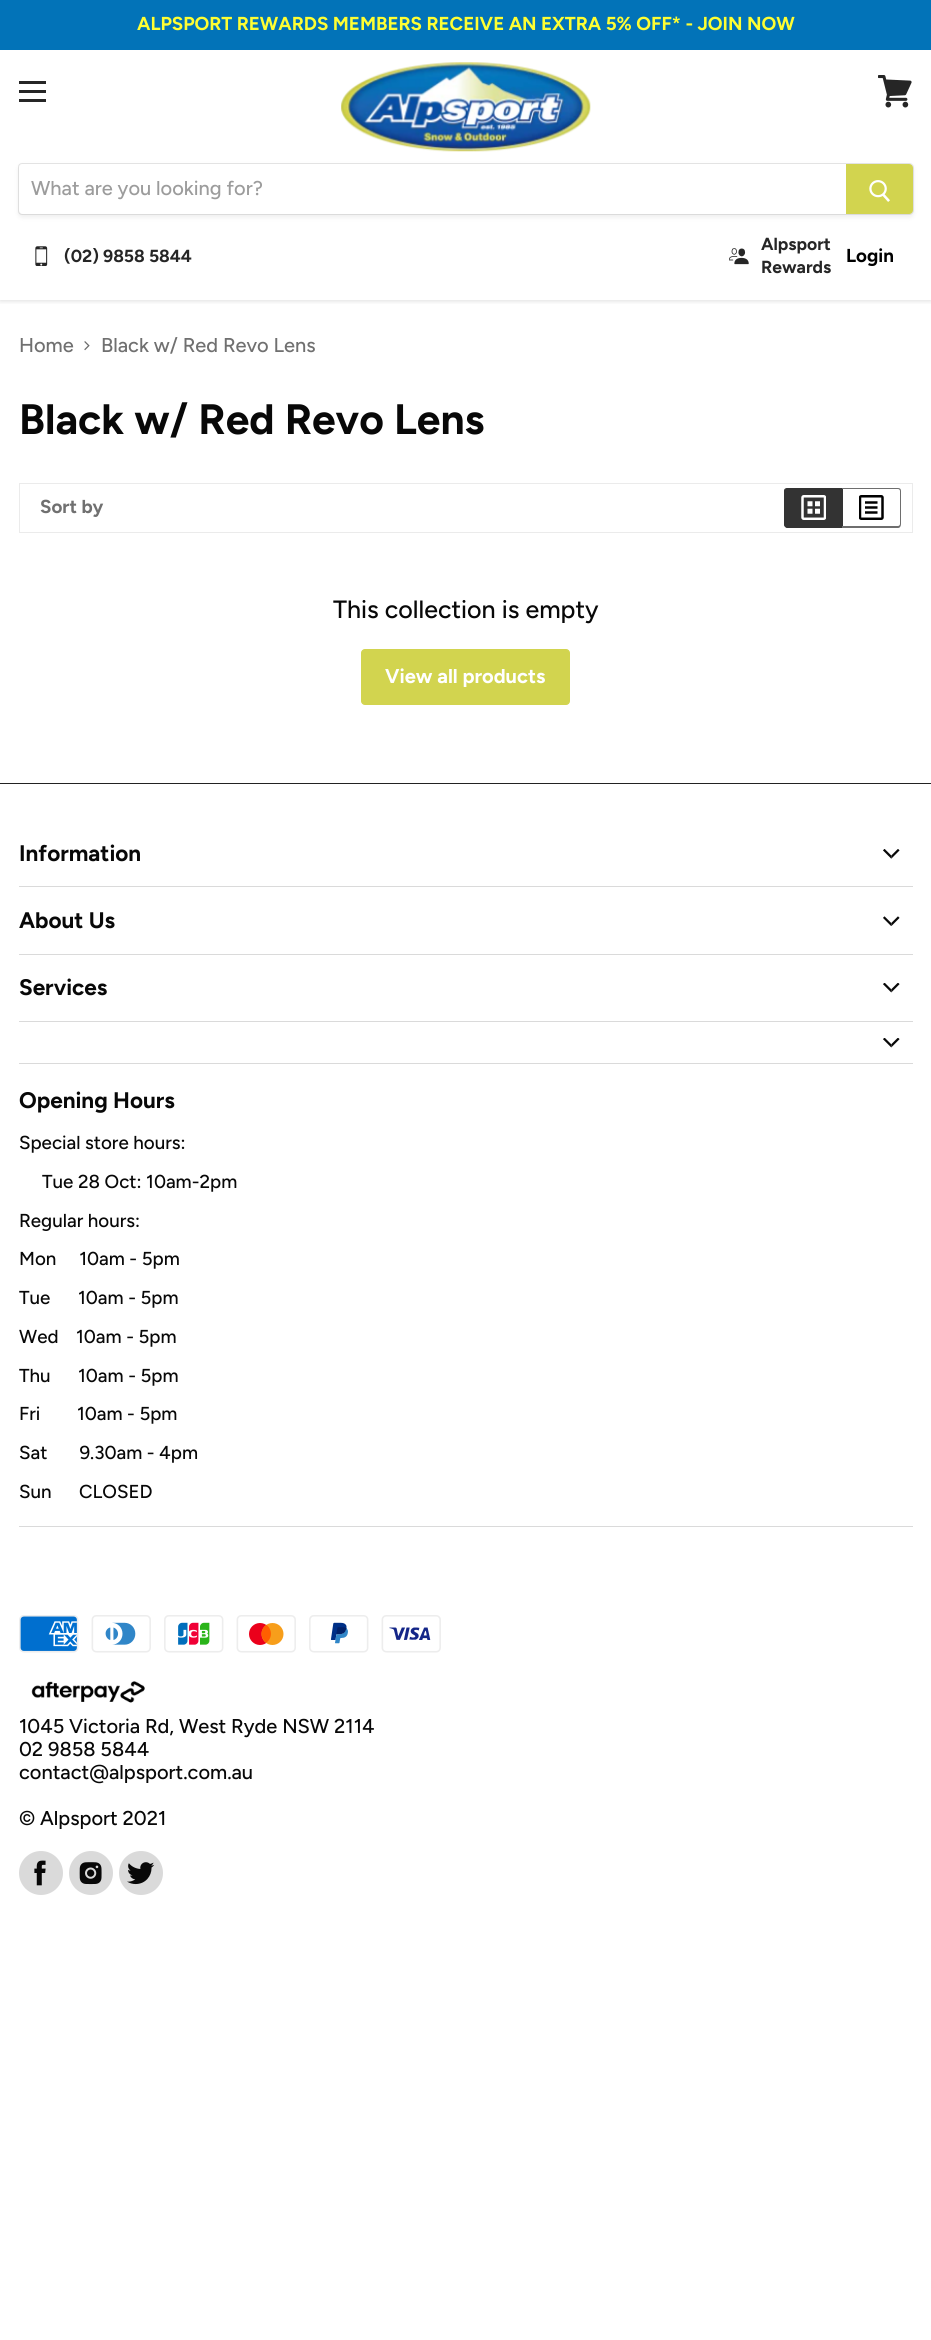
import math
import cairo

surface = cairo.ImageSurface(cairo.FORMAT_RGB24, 931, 2340)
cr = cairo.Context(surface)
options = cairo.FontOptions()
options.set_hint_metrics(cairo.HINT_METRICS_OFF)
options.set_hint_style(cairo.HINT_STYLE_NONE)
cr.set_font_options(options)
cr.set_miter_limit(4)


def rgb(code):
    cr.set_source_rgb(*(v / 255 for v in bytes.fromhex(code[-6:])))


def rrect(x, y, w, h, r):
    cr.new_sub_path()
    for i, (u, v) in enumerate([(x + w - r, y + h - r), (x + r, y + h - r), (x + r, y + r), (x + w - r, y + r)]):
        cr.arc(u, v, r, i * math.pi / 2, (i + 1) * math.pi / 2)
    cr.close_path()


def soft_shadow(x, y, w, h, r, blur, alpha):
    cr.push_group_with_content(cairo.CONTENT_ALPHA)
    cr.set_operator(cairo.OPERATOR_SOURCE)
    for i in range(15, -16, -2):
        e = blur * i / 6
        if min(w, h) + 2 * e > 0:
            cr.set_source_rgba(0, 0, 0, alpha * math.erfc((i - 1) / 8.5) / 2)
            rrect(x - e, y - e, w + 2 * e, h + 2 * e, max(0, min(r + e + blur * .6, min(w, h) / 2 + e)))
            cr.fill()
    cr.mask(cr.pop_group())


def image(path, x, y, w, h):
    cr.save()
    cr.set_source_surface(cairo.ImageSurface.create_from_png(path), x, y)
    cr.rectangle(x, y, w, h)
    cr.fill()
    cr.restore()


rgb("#ffffff")
cr.paint()
cr.save()
cr.rectangle(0, 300, 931, 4)
cr.clip()
rgb("#7f7f7f")
soft_shadow(0, 1, 931, 300, 0, 2.5, 0.25)
cr.restore()
for x, y, w, h, color in [
    (0, 0, 931, 50, "#0273b8"),
    (19, 81, 27, 3, "#262626"),
    (19, 90, 27, 3, "#262626"),
    (19, 99, 27, 3, "#262626"),
]:
    rgb(color)
    cr.rectangle(x, y, w, h)
    cr.fill()
image("img/1.png", 878, 75, 34, 33)
image("img/2.png", 341, 62, 250, 90)
rgb("#7f7f7f")
soft_shadow(18, 165, 896, 53, 5, 2, 0.11)
cr.new_path()
cr.move_to(22, 163.5)
cr.line_to(909, 163.5)
cr.curve_to(911.5, 163.5, 913.5, 165.5, 913.5, 168)
cr.line_to(913.5, 210)
cr.curve_to(913.5, 212.5, 911.5, 214.5, 909, 214.5)
cr.line_to(22, 214.5)
cr.curve_to(20, 214.5, 18.5, 213, 18.5, 211)
cr.line_to(18.5, 167)
cr.curve_to(18.5, 165, 20, 163.5, 22, 163.5)
cr.close_path()
cr.set_source_rgba(0.498, 0.498, 0.498, 0.2)
cr.set_line_width(1)
cr.stroke()
rgb("#ffffff")
cr.new_path()
cr.move_to(23, 164)
cr.line_to(846, 164)
cr.line_to(846, 214)
cr.line_to(23, 214)
cr.curve_to(21, 214, 19, 212, 19, 210)
cr.line_to(19, 168)
cr.curve_to(19, 166, 21, 164, 23, 164)
cr.close_path()
cr.fill()
rgb("#d2d44f")
cr.new_path()
cr.move_to(846.5, 164.5)
cr.line_to(909, 164.5)
cr.curve_to(911, 164.5, 912.5, 166, 912.5, 168)
cr.line_to(912.5, 210)
cr.curve_to(912.5, 212, 911, 213.5, 909, 213.5)
cr.line_to(846.5, 213.5)
cr.close_path()
cr.fill_preserve()
cr.stroke()
image("img/3.png", 869, 180, 21, 22)
image("img/4.png", 35, 246, 13, 20)
image("img/5.png", 729, 248, 20, 17)
image("img/6.png", 84, 341, 6, 10)
cr.rectangle(19.5, 483.5, 893, 49)
cr.set_source_rgba(0.498, 0.498, 0.498, 0.16)
cr.stroke()
rgb("#333333")
cr.new_path()
cr.move_to(788, 488)
cr.line_to(843, 488)
cr.line_to(843, 528)
cr.line_to(788, 528)
cr.curve_to(786, 528, 784, 526, 784, 524)
cr.line_to(784, 492)
cr.curve_to(784, 490, 786, 488, 788, 488)
cr.close_path()
cr.fill()
cr.set_fill_rule(cairo.FILL_RULE_EVEN_ODD)
cr.new_path()
cr.move_to(788, 488)
cr.line_to(842, 488)
cr.line_to(842, 528)
cr.line_to(788, 528)
cr.curve_to(785, 528, 784, 526, 784, 524)
cr.line_to(784, 491)
cr.curve_to(784, 489, 785, 488, 788, 488)
cr.close_path()
cr.move_to(788, 489)
cr.line_to(842, 489)
cr.line_to(842, 526)
cr.line_to(788, 526)
cr.curve_to(786, 526, 785, 525, 785, 524)
cr.line_to(785, 491)
cr.curve_to(785, 490, 786, 489, 788, 489)
cr.close_path()
cr.fill()
image("img/7.png", 801, 495, 25, 25)
rgb("#6e6e6e")
cr.new_path()
cr.move_to(842, 488)
cr.line_to(898, 488)
cr.curve_to(900, 488, 901, 489, 901, 491)
cr.line_to(901, 524)
cr.curve_to(901, 526, 900, 528, 898, 528)
cr.line_to(842, 528)
cr.close_path()
cr.move_to(842, 489)
cr.line_to(898, 489)
cr.curve_to(899, 489, 900, 490, 900, 491)
cr.line_to(900, 524)
cr.curve_to(900, 525, 899, 526, 898, 526)
cr.line_to(842, 526)
cr.close_path()
cr.fill()
image("img/8.png", 859, 495, 25, 25)
rgb("#d2d44f")
rrect(361.5, 649.5, 208, 55, 3.5)
cr.fill_preserve()
cr.stroke()
rgb("#222222")
cr.rectangle(0, 783, 931, 1)
cr.fill()
rgb("#dadada")
cr.rectangle(19, 886, 894, 1)
cr.fill()
image("img/9.png", 883, 849, 17, 10)
cr.rectangle(19, 954, 894, 1)
cr.fill()
image("img/10.png", 883, 916, 17, 10)
cr.rectangle(19, 1021, 894, 1)
cr.fill()
image("img/11.png", 883, 983, 17, 10)
cr.rectangle(19, 1063, 894, 1)
cr.fill()
image("img/11.png", 883, 1038, 17, 10)
cr.rectangle(19, 1526, 894, 1)
cr.fill()
image("img/12.png", 19, 1615, 60, 38)
image("img/13.png", 91, 1615, 60, 38)
image("img/14.png", 164, 1615, 60, 38)
image("img/15.png", 236, 1615, 60, 38)
image("img/16.png", 309, 1615, 60, 38)
image("img/17.png", 381, 1615, 60, 38)
image("img/18.png", 31, 1681, 114, 22)
cr.arc(41, 1873, 22, 0, 2 * math.pi)
cr.fill()
image("img/19.png", 34, 1860, 12, 26)
cr.arc(91, 1873, 22, 0, 2 * math.pi)
cr.fill()
image("img/20.png", 79, 1862, 23, 23)
cr.arc(141, 1873, 22, 0, 2 * math.pi)
cr.fill()
image("img/21.png", 127, 1862, 28, 23)
cr.select_font_face("Figtree", cairo.FONT_SLANT_NORMAL, cairo.FONT_WEIGHT_BOLD)
cr.set_font_size(18.75)
rgb("#fefe33")
cr.move_to(137, 30)
cr.show_text("ALPSPORT REWARDS MEMBERS RECEIVE AN EXTRA 5% OFF* - JOIN NOW")
cr.select_font_face("Figtree Medium")
cr.set_font_size(20)
rgb("#9c9c9c")
cr.move_to(31, 195)
cr.show_text("What are you looking for?")
cr.select_font_face("Figtree", cairo.FONT_SLANT_NORMAL, cairo.FONT_WEIGHT_BOLD)
cr.set_font_size(17.5)
rgb("#262626")
for x, y, s in [
    (64, 262, "(02) 9858 5844"),
    (761, 250, "Alpsport"),
    (761, 273, "Rewards"),
]:
    cr.move_to(x, y)
    cr.show_text(s)
cr.set_font_size(18.75)
rgb("#000000")
cr.move_to(846, 262)
cr.show_text("Login")
cr.select_font_face("Figtree Medium")
cr.set_font_size(20)
rgb("#707070")
cr.move_to(19, 352)
cr.show_text("Home")
cr.move_to(101, 352)
cr.show_text("Black w/ Red Revo Lens")
cr.select_font_face("Figtree", cairo.FONT_SLANT_NORMAL, cairo.FONT_WEIGHT_BOLD)
cr.set_font_size(42.5)
rgb("#080808")
cr.move_to(19, 434)
cr.show_text("Black w/ Red Revo Lens")
cr.set_font_size(18.75)
rgb("#707070")
cr.move_to(40, 513)
cr.show_text("Sort by")
cr.select_font_face("Figtree Medium")
cr.set_font_size(25)
rgb("#080808")
cr.move_to(333, 618)
cr.show_text("This collection is empty")
cr.select_font_face("Figtree", cairo.FONT_SLANT_NORMAL, cairo.FONT_WEIGHT_BOLD)
cr.set_font_size(20)
rgb("#ffffff")
cr.move_to(385, 683)
cr.show_text("View all products")
cr.set_font_size(22.5)
rgb("#080808")
for x, y, s in [
    (19, 861, "Information"),
    (19, 928, "About Us"),
    (19, 995, "Services"),
    (19, 1108, "Opening Hours"),
]:
    cr.move_to(x, y)
    cr.show_text(s)
cr.select_font_face("Figtree Medium")
cr.set_font_size(18.75)
for x, y, s in [
    (19, 1149, "Special store hours:"),
    (42, 1188, "Tue 28 Oct: 10am-2pm"),
    (19, 1227, "Regular hours:"),
    (19, 1265, "Mon     10am - 5pm"),
    (19, 1304, "Tue"),
    (78, 1304, "10am - 5pm"),
    (19, 1343, "Wed"),
    (76, 1343, "10am - 5pm"),
    (19, 1382, "Thu      10am - 5pm"),
    (19, 1420, "Fri        10am - 5pm"),
    (19, 1459, "Sat       9.30am - 4pm"),
    (19, 1498, "Sun      CLOSED"),
]:
    cr.move_to(x, y)
    cr.show_text(s)
cr.set_font_size(20)
for x, y, s in [
    (19, 1733, "1045 Victoria Rd, West Ryde NSW 2114"),
    (19, 1756, "02 9858 5844"),
    (19, 1779, "contact@alpsport.com.au"),
    (19, 1825, "© Alpsport 2021"),
]:
    cr.move_to(x, y)
    cr.show_text(s)
surface.write_to_png("page.png")
